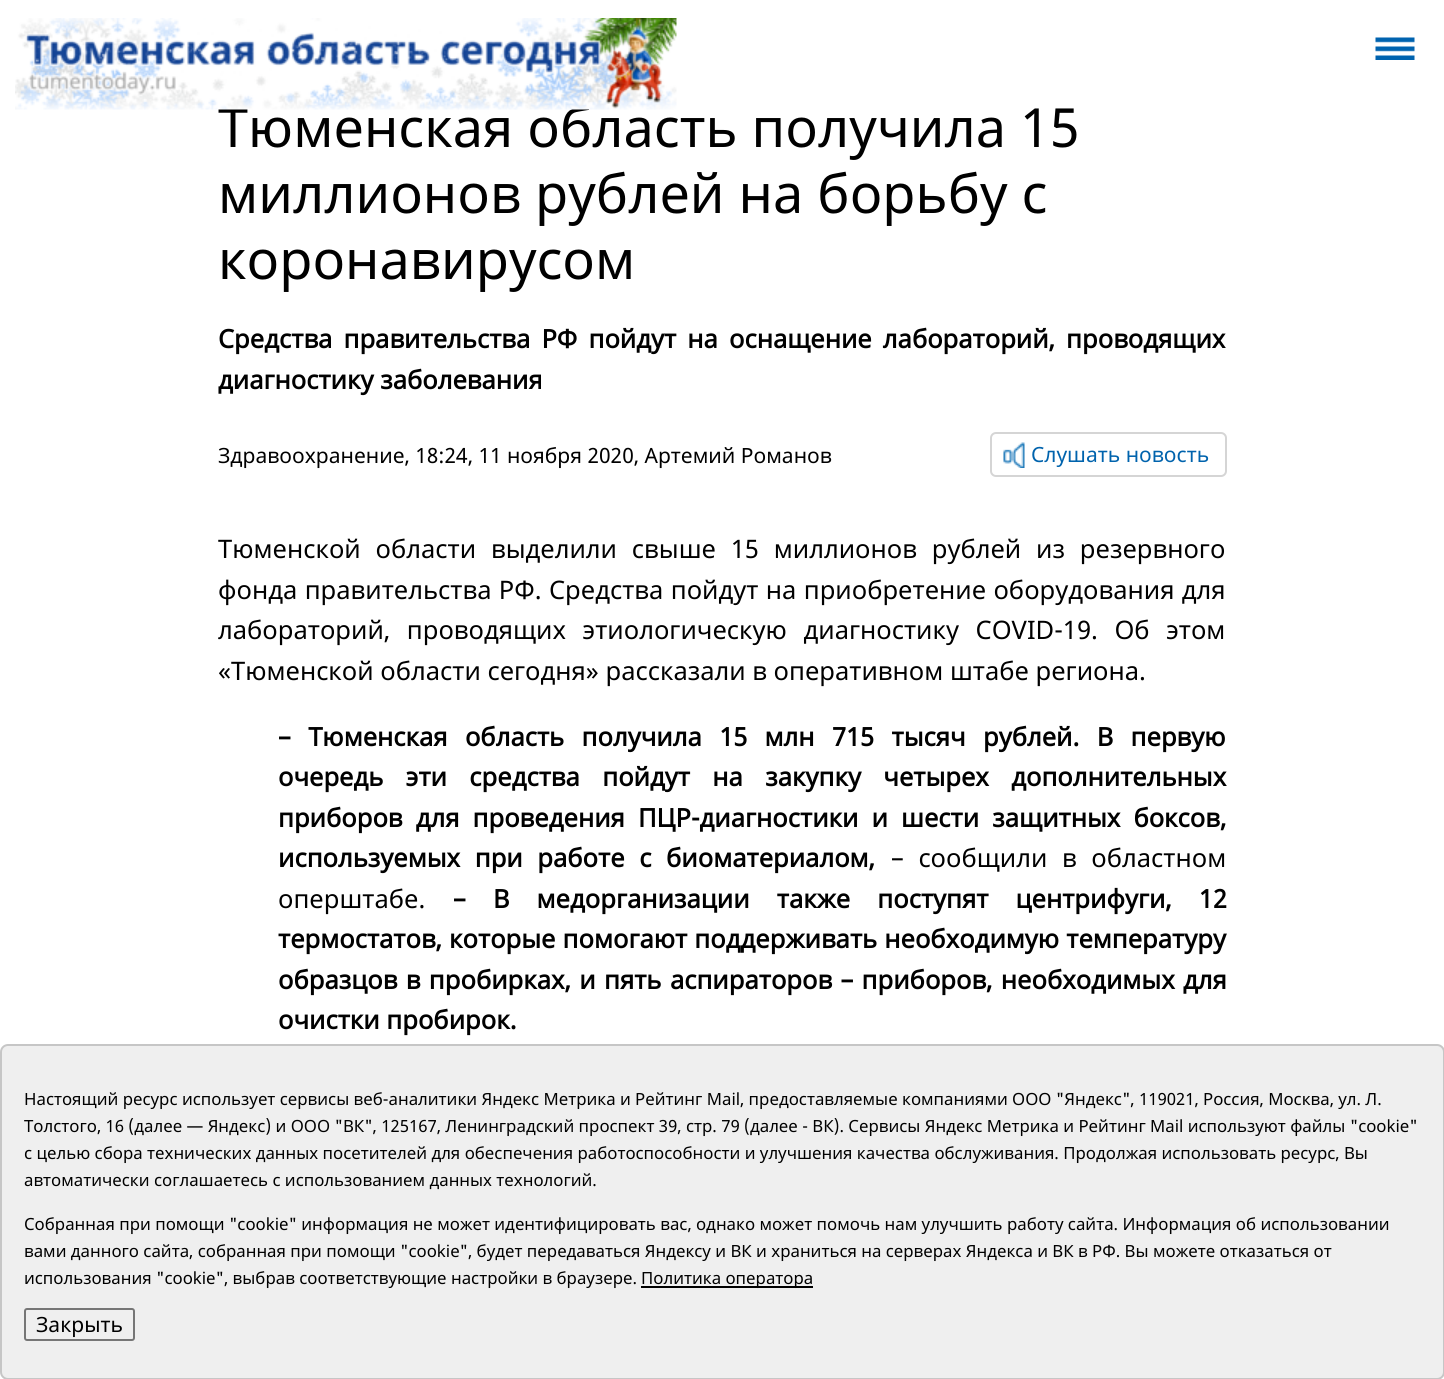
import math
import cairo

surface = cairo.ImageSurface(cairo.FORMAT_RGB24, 1444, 1379)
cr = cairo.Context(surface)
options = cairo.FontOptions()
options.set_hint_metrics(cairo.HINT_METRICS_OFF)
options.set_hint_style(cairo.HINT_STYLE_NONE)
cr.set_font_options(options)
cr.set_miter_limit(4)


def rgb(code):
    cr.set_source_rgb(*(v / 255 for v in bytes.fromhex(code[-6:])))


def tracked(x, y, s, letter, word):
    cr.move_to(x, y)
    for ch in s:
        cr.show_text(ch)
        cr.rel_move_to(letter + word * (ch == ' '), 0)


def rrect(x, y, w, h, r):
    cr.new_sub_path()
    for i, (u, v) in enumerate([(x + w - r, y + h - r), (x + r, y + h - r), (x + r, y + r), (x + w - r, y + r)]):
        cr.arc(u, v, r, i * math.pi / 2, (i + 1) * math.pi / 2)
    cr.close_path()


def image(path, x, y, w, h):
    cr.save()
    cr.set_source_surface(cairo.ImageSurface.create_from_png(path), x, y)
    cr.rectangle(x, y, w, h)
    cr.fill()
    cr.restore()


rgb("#ffffff")
cr.paint()
image("img/2.png", 1375, 37, 40, 23)
rrect(991, 433, 235, 43, 5)
rgb("#d5d5d5")
cr.stroke()
image("img/3.png", 1003, 442, 22, 26)
cr.set_source_rgba(0.937, 0.937, 0.937, 0.95)
rrect(1, 1045, 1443, 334, 7)
cr.fill_preserve()
rgb("#c6c6c6")
cr.stroke()
rgb("#000000")
cr.rectangle(641, 1286, 172, 2)
cr.fill()
rrect(25, 1309, 109, 31, 2)
rgb("#767676")
cr.stroke()
cr.select_font_face("Noto Sans")
cr.set_font_size(54)
rgb("#000000")
cr.move_to(218, 147)
cr.show_text("Тюменская область получила 15")
image("img/1.png", 15, 18, 662, 92)
cr.move_to(218, 213)
cr.show_text("миллионов рублей на борьбу с")
cr.move_to(218, 279)
cr.show_text("коронавирусом")
cr.select_font_face("Noto Sans", cairo.FONT_SLANT_NORMAL, cairo.FONT_WEIGHT_BOLD)
cr.set_font_size(25.5)
tracked(218, 348, "Средства правительства РФ пойдут на оснащение лабораторий, проводящих", 0, 4.5)
cr.move_to(218, 389)
cr.show_text("диагностику заболевания")
cr.select_font_face("Noto Sans")
cr.set_font_size(21)
cr.move_to(218, 463)
cr.show_text("Здравоохранение, 18:24, 11 ноября 2020, Артемий Романов")
rgb("#0063ad")
cr.move_to(1031, 462)
cr.show_text("Слушать новость")
cr.set_font_size(25.5)
rgb("#000000")
tracked(218, 558, "Тюменской области выделили свыше 15 миллионов рублей из резервного", 0, 8.25)
tracked(218, 599, "фонда правительства РФ. Средства пойдут на приобретение оборудования для", 0, 0.75)
tracked(218, 639, "лабораторий, проводящих этиологическую диагностику COVID-19. Об этом", 0, 10)
cr.move_to(218, 680)
cr.show_text("«Тюменской области сегодня» рассказали в оперативном штабе региона.")
cr.select_font_face("Noto Sans", cairo.FONT_SLANT_NORMAL, cairo.FONT_WEIGHT_BOLD)
tracked(278, 746, "– Тюменская область получила 15 млн 715 тысяч рублей. В первую", 0, 10.75)
tracked(278, 786, "очередь эти средства пойдут на закупку четырех дополнительных", 0, 15.75)
tracked(278, 827, "приборов для проведения ПЦР-диагностики и шести защитных боксов,", 0, 6.5)
tracked(278, 867, "используемых при работе с биоматериалом,", 0, 8)
cr.select_font_face("Noto Sans")
tracked(891, 867, "– сообщили в областном", 0, 8)
cr.move_to(278, 908)
cr.show_text("оперштабе.")
cr.select_font_face("Noto Sans", cairo.FONT_SLANT_NORMAL, cairo.FONT_WEIGHT_BOLD)
tracked(453, 908, "– В медорганизации также поступят центрифуги, 12", 0, 20.5)
tracked(278, 948, "термостатов, которые помогают поддерживать необходимую температуру", 0, 0.5)
tracked(278, 989, "образцов в пробирках, и пять аспираторов – приборов, необходимых для", 0, 1.75)
cr.move_to(278, 1029)
cr.show_text("очистки пробирок.")
cr.select_font_face("Noto Sans")
cr.set_font_size(16.8)
for x, y, s in [
    (24, 1105, "Настоящий ресурс использует сервисы веб-аналитики Яндекс Метрика и Рейтинг Mail, предоставляемые компаниями ООО \"Яндекс\", 119021, Россия, Москва, ул. Л."),
    (24, 1132, "Толстого, 16 (далее — Яндекс) и ООО \"ВК\", 125167, Ленинградский проспект 39, стр. 79 (далее - ВК). Сервисы Яндекс Метрика и Рейтинг Mail используют файлы \"cookie\""),
    (24, 1159, "с целью сбора технических данных посетителей для обеспечения работоспособности и улучшения качества обслуживания. Продолжая использовать ресурс, Вы"),
    (24, 1186, "автоматически соглашаетесь с использованием данных технологий."),
    (24, 1230, "Собранная при помощи \"cookie\" информация не может идентифицировать вас, однако может помочь нам улучшить работу сайта. Информация об использовании"),
    (24, 1257, "вами данного сайта, собранная при помощи \"cookie\", будет передаваться Яндексу и ВК и храниться на серверах Яндекса и ВК в РФ. Вы можете отказаться от"),
    (24, 1284, "использования \"cookie\", выбрав соответствующие настройки в браузере."),
    (641, 1284, "Политика оператора"),
]:
    cr.move_to(x, y)
    cr.show_text(s)
cr.set_font_size(21)
cr.move_to(36, 1332)
cr.show_text("Закрыть")
surface.write_to_png("page.png")
